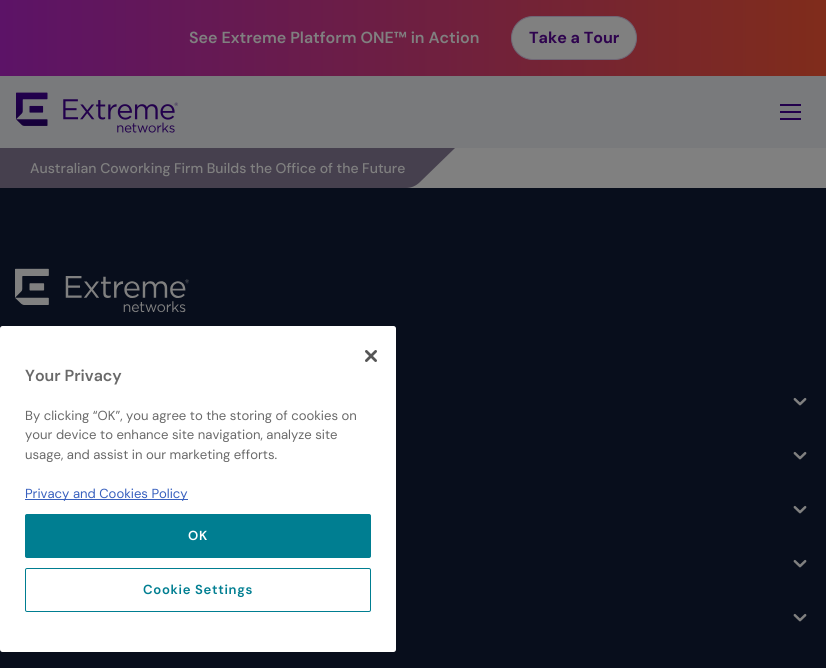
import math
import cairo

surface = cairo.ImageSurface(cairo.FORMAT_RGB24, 826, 668)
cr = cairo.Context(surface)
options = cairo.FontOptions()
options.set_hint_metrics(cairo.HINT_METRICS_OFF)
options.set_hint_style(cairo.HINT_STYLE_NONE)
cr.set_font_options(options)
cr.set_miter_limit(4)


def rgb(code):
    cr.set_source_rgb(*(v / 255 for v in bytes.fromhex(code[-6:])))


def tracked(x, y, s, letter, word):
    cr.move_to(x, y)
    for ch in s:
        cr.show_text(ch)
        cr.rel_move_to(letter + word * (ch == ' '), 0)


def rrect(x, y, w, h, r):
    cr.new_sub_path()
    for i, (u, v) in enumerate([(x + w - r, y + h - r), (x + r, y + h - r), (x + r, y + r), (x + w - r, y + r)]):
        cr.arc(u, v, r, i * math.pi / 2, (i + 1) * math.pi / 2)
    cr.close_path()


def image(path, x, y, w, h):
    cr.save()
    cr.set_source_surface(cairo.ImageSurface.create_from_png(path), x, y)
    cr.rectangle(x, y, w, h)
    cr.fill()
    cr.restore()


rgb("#808080")
cr.paint()
gradient = cairo.LinearGradient(0, 38, 826, 38)
gradient.add_color_stop_rgba(0, 0.361, 0.075, 0.404, 1)
gradient.add_color_stop_rgba(0.5, 0.431, 0.122, 0.255, 1)
gradient.add_color_stop_rgba(1, 0.502, 0.173, 0.106, 1)
cr.set_source(gradient)
cr.rectangle(0, 0, 826, 76)
cr.fill()
rgb("#808080")
rrect(511.5, 16.5, 125, 43, 21.5)
cr.fill_preserve()
rgb("#6f6776")
cr.set_line_width(1)
cr.stroke()
rgb("#797a7c")
cr.rectangle(0, 76, 826, 72)
cr.fill()
image("img/1.png", 16, 92, 162, 41)
for x, y, w, h, color in [
    (780, 111, 21, 2, "#22004c"),
    (780, 104, 21, 2, "#22004c"),
    (780, 118, 21, 2, "#22004c"),
]:
    rgb(color)
    cr.rectangle(x, y, w, h)
    cr.fill()
rgb("#46404e")
cr.new_path()
cr.move_to(455, 148)
cr.line_to(420, 182)
cr.curve_to(416, 186, 411, 188, 406, 188)
cr.line_to(-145, 188)
cr.line_to(-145, 148)
cr.close_path()
cr.fill()
rgb("#080e1c")
cr.rectangle(0, 188, 826, 480)
cr.fill()
image("img/2.png", 15, 268, 174, 45)
image("img/3.png", 793, 397, 14, 9)
image("img/3.png", 793, 451, 14, 9)
image("img/3.png", 793, 505, 14, 9)
image("img/3.png", 793, 559, 14, 9)
image("img/3.png", 793, 613, 14, 9)
rgb("#ffffff")
rrect(0, 326, 396, 326, 2.5)
cr.fill()
image("img/4.png", 365, 350, 12, 12)
rgb("#3860be")
cr.rectangle(25, 499, 163, 1)
cr.fill()
rgb("#007e91")
rrect(25.5, 514.5, 345, 43, 1.5)
cr.fill_preserve()
cr.stroke()
rrect(25.5, 568.5, 345, 43, 1.5)
cr.stroke()
cr.select_font_face("DM Sans SemiBold")
cr.set_font_size(16)
rgb("#808080")
cr.move_to(189, 43)
cr.show_text("See Extreme Platform ONE™ in Action")
cr.select_font_face("DM Sans", cairo.FONT_SLANT_NORMAL, cairo.FONT_WEIGHT_BOLD)
rgb("#2e034e")
cr.move_to(529, 43)
cr.show_text("Take a Tour")
cr.select_font_face("DM Sans Medium")
cr.set_font_size(14)
rgb("#808080")
cr.move_to(30, 173)
cr.show_text("Australian Coworking Firm Builds the Office of the Future")
cr.select_font_face("DM Sans SemiBold")
cr.set_font_size(16)
rgb("#696969")
cr.move_to(25, 381)
cr.show_text("Your Privacy")
cr.select_font_face("DM Sans")
cr.set_font_size(13.1)
for x, y, s in [
    (25, 420, "By clicking “OK”, you agree to the storing of cookies on"),
    (25, 439, "your device to enhance site navigation, analyze site"),
    (25, 459, "usage, and assist in our marketing efforts."),
]:
    cr.move_to(x, y)
    cr.show_text(s)
rgb("#3860be")
cr.move_to(25, 498)
cr.show_text("Privacy and Cookies Policy")
cr.select_font_face("DM Sans SemiBold")
rgb("#ffffff")
tracked(188, 540, "OK", 0.7, 0)
rgb("#007e91")
tracked(143, 594, "Cookie Settings", 0.7, 0)
surface.write_to_png("page.png")
